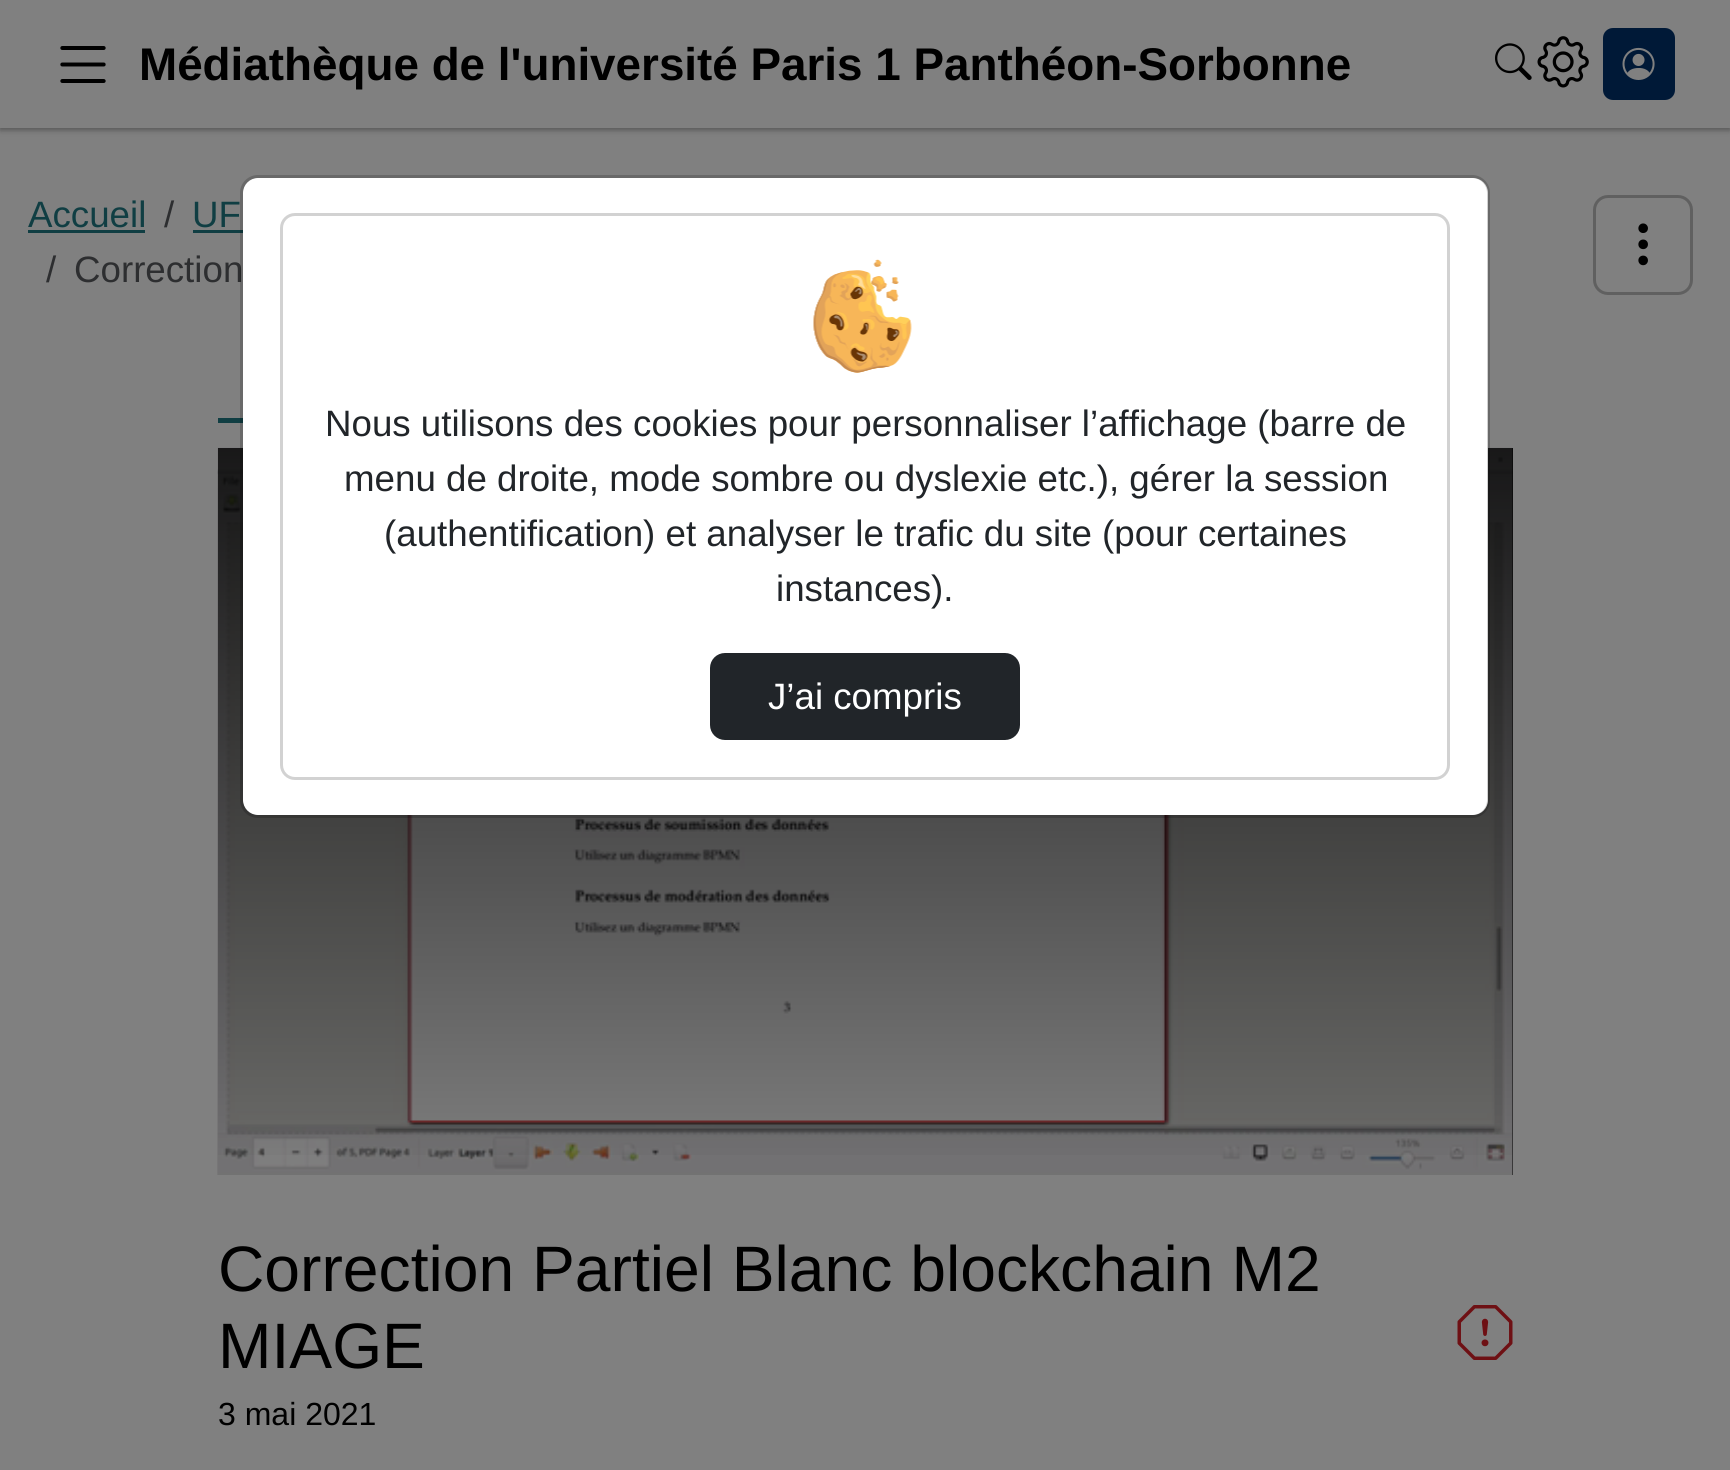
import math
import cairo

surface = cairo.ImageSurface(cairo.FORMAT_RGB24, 1730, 1470)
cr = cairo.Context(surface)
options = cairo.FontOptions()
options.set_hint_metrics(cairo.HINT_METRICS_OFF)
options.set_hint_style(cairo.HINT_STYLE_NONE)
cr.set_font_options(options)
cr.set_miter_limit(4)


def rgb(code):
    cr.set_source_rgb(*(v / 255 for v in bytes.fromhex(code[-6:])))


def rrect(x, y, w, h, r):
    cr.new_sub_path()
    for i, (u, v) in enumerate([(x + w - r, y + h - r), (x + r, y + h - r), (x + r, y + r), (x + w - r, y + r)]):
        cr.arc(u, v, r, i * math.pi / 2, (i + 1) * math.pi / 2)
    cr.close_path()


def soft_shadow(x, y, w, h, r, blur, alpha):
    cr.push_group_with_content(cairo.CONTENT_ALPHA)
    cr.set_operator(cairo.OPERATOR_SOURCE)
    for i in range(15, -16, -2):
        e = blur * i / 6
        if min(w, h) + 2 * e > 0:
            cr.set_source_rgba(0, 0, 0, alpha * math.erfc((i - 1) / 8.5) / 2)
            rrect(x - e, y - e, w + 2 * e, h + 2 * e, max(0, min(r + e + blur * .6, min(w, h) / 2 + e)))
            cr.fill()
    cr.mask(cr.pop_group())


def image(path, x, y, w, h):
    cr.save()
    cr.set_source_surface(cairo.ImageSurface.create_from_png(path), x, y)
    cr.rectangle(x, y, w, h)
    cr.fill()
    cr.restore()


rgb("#808080")
cr.paint()
rgb("#000000")
soft_shadow(0, 3, 1730, 127, 0, 2.5, 0.24)
soft_shadow(0, 3, 1730, 127, 0, 4, 0.12)
rgb("#808080")
cr.rectangle(0, 0, 1730, 128)
cr.fill()
image("img/1.png", 60, 46, 46, 37)
image("img/2.png", 1495, 43, 37, 37)
image("img/3.png", 1537, 36, 52, 52)
rgb("#001937")
rrect(1604.5, 29.5, 69, 69, 8.5)
cr.fill_preserve()
cr.set_line_width(3)
cr.stroke()
image("img/4.png", 1622, 47, 33, 33)
for x, y, w, h, color in [
    (28, 230, 117, 3, "#103e43"),
    (193, 230, 50, 3, "#103e43"),
    (218, 418, 25, 5, "#103e43"),
    (1512, 448, 1, 727, "#000000"),
]:
    rgb(color)
    cr.rectangle(x, y, w, h)
    cr.fill()
image("img/6.png", 217, 448, 1, 727)
image("img/5.png", 217, 447, 1296, 728)
gradient = cairo.LinearGradient(865, 447, 865, 1175)
gradient.add_color_stop_rgba(0, 0, 0, 0, 0.8)
gradient.add_color_stop_rgba(1, 0, 0, 0, 0)
cr.set_source(gradient)
cr.rectangle(218, 448, 1295, 707)
cr.fill()
image("img/7.png", 1457, 1305, 56, 55)
rrect(1594.5, 196.5, 97, 97, 13.5)
rgb("#606060")
cr.stroke()
image("img/8.png", 1638, 223, 10, 43)
rgb("#ffffff")
rrect(243, 178, 1245, 637, 15)
cr.fill()
cr.select_font_face("Liberation Sans", cairo.FONT_SLANT_NORMAL, cairo.FONT_WEIGHT_BOLD)
cr.set_font_size(45.8)
rgb("#000000")
cr.move_to(139, 80)
cr.show_text("Médiathèque de l'université Paris 1 Panthéon-Sorbonne")
cr.select_font_face("Liberation Sans")
cr.set_font_size(36.7)
rgb("#103e43")
cr.move_to(28, 227)
cr.show_text("Accueil")
rgb("#2d2e30")
cr.move_to(164, 227)
cr.show_text("/")
rgb("#103e43")
cr.move_to(192, 227)
cr.show_text("UF")
rgb("#2d2e30")
cr.move_to(46, 282)
cr.show_text("/")
cr.move_to(74, 282)
cr.show_text("Correction")
cr.set_font_size(64.2)
rgb("#000000")
cr.move_to(218, 1291)
cr.show_text("Correction Partiel Blanc blockchain M2")
cr.move_to(218, 1368)
cr.show_text("MIAGE")
cr.set_font_size(32)
cr.move_to(218, 1425)
cr.show_text("3 mai 2021")
rrect(241.5, 176.5, 1247, 640, 16.5)
cr.set_source_rgba(0, 0, 0, 0.18)
cr.stroke()
rrect(281.5, 214.5, 1167, 564, 13.5)
rgb("#d2d2d2")
cr.stroke()
image("img/9.png", 813, 259, 99, 114)
cr.set_font_size(36.7)
rgb("#212529")
for x, y, s in [
    (325, 436, "Nous utilisons des cookies pour personnaliser l’affichage (barre de"),
    (344, 491, "menu de droite, mode sombre ou dyslexie etc.), gérer la session"),
    (384, 546, "(authentification) et analyser le trafic du site (pour certaines"),
    (776, 601, "instances)."),
]:
    cr.move_to(x, y)
    cr.show_text(s)
rrect(711.5, 654.5, 307, 84, 13.5)
cr.fill_preserve()
cr.stroke()
rgb("#ffffff")
cr.move_to(768, 709)
cr.show_text("J’ai compris")
surface.write_to_png("page.png")
